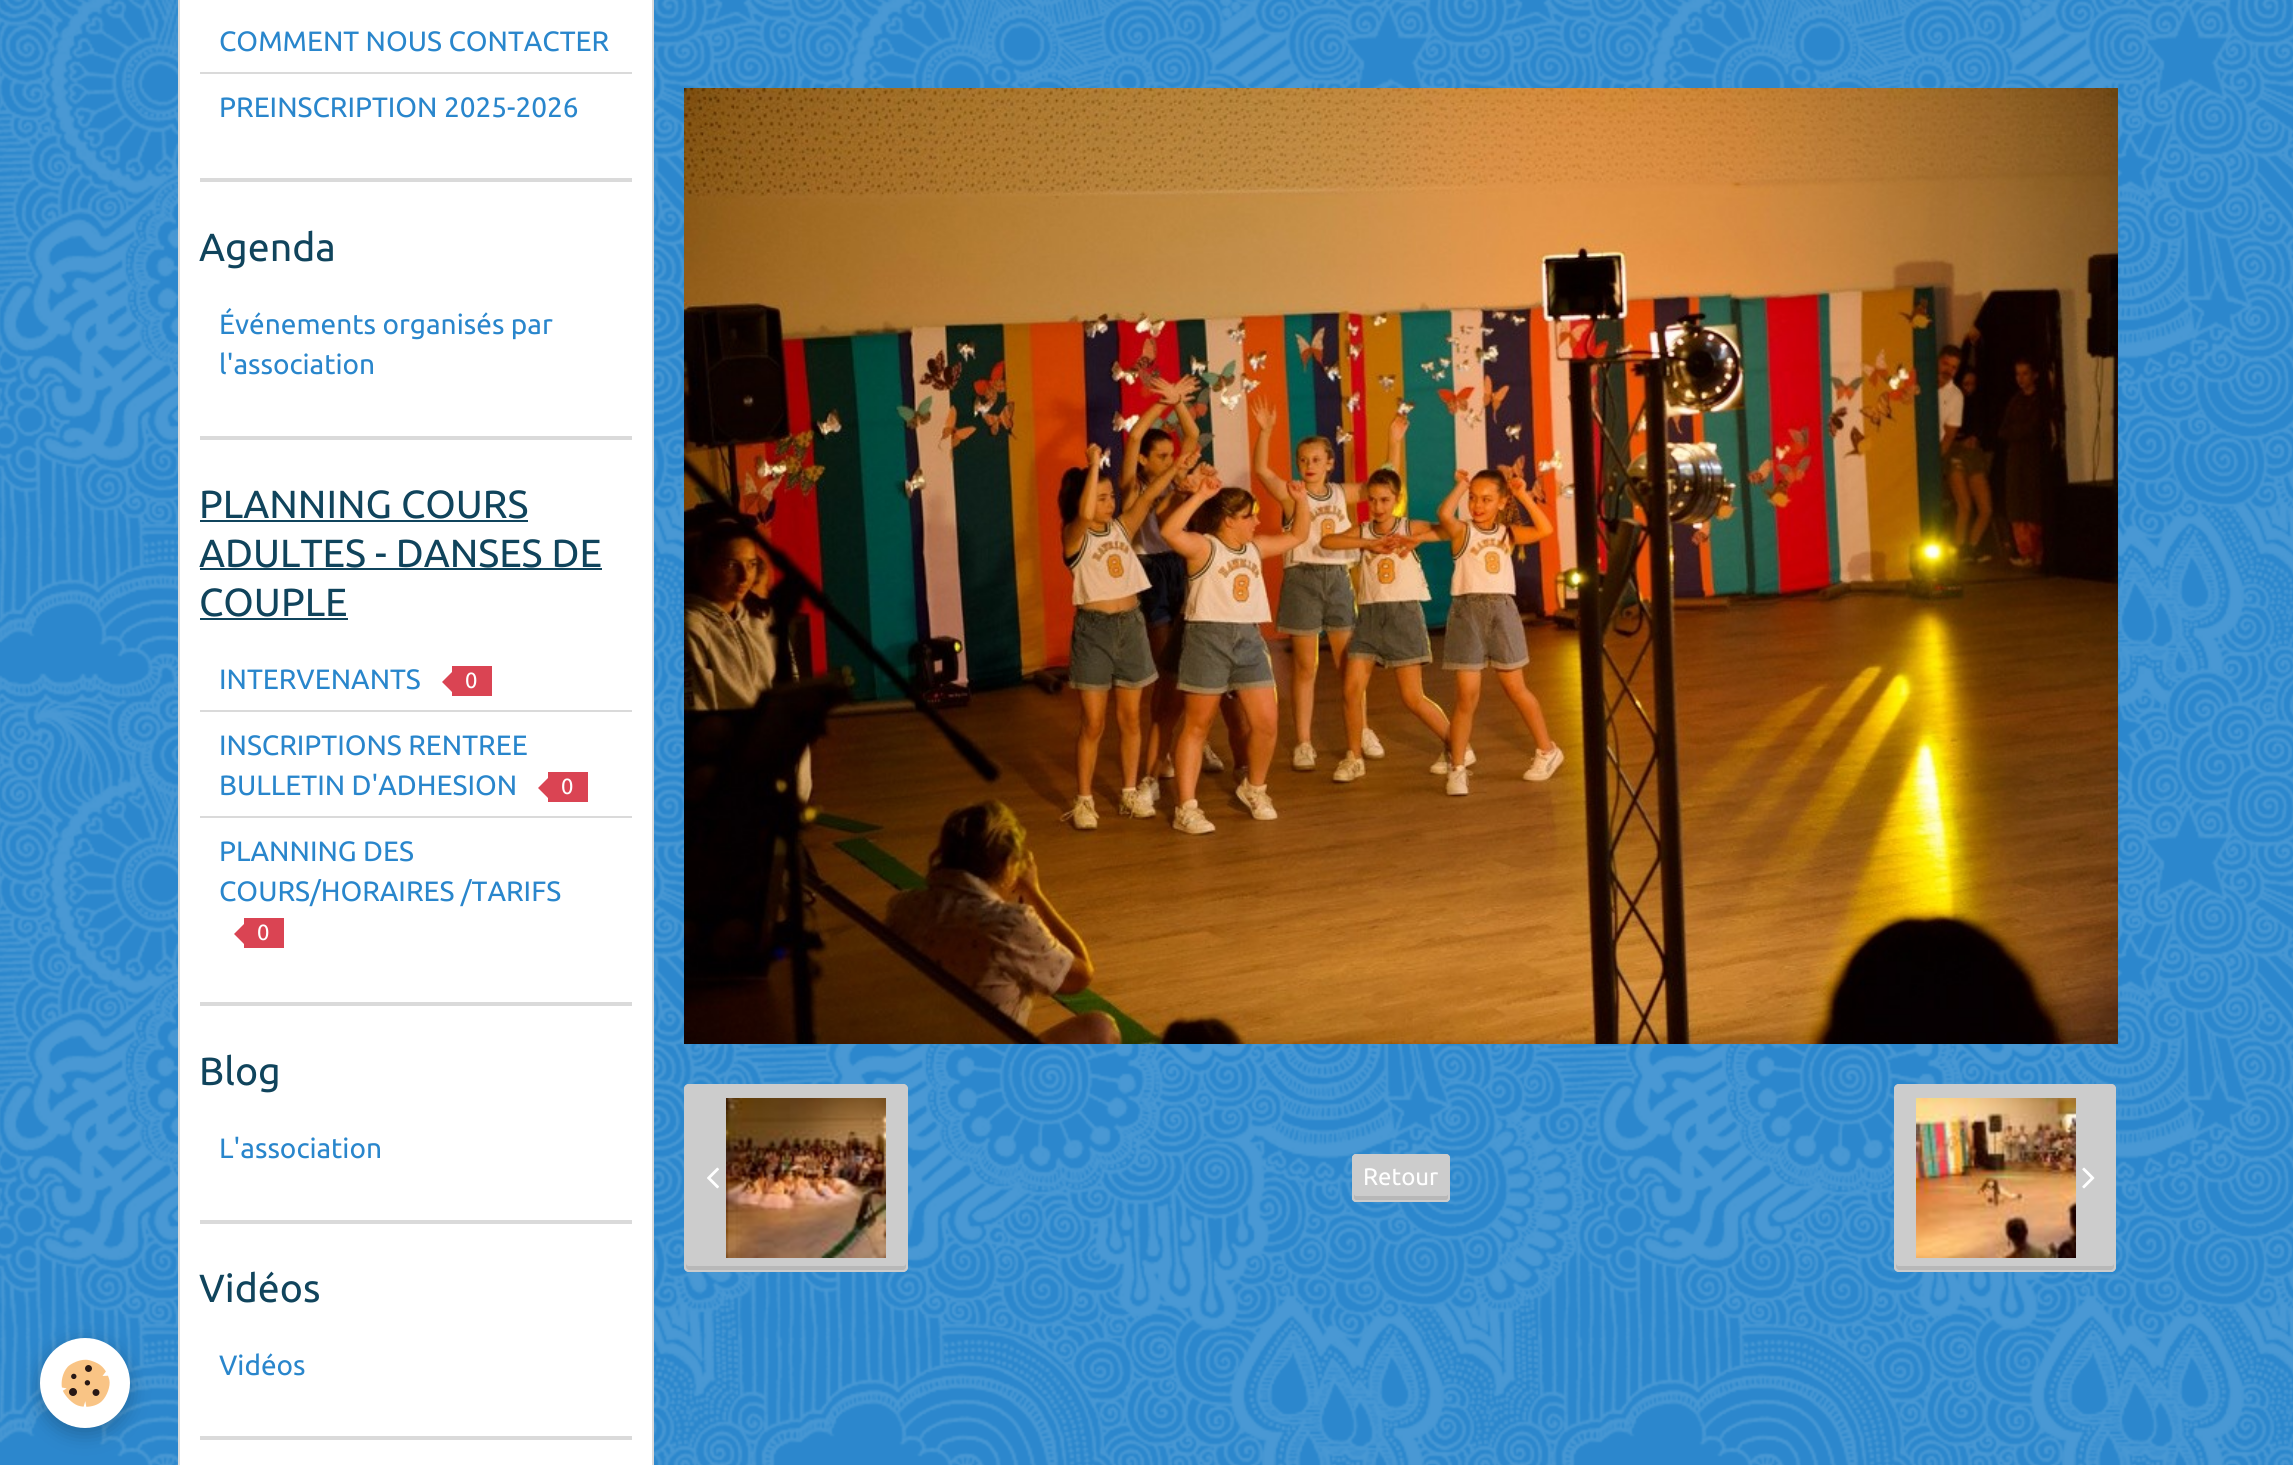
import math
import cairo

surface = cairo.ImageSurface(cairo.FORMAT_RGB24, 2293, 1465)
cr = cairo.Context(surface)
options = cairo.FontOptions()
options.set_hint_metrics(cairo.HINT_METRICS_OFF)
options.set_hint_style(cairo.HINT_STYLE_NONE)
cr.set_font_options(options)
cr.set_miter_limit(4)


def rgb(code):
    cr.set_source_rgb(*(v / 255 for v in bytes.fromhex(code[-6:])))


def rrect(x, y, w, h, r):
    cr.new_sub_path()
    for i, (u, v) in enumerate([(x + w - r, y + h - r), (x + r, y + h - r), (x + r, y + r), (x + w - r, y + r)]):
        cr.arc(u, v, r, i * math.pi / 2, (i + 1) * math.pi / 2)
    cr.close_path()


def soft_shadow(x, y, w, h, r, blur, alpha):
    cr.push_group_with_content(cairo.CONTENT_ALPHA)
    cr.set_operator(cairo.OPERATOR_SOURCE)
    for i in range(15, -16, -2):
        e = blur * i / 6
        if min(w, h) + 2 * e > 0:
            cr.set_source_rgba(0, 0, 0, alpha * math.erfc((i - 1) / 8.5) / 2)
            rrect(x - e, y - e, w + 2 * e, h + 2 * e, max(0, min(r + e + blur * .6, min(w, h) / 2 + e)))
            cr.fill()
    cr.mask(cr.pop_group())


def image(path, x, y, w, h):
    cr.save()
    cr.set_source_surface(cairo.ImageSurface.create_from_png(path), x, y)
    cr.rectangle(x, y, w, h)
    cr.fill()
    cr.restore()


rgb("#2986cc")
cr.paint()
image("img/1.png", 0, 0, 2293, 1465)
rgb("#000000")
soft_shadow(40, 1344, 90, 90, 45, 10, 0.24)
rgb("#ffffff")
cr.arc(85, 1383, 45, 0, 2 * math.pi)
cr.fill()
image("img/2.png", 61, 1359, 49, 48)
cr.rectangle(179, -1, 474, 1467)
cr.fill_preserve()
rgb("#dadada")
cr.stroke()
for x, y, w, h, color in [
    (200, 178, 432, 4, "#dadada"),
    (200, 72, 432, 2, "#dadada"),
    (200, 436, 432, 4, "#dadada"),
    (200, 1002, 432, 4, "#dadada"),
    (200, 520, 328, 2, "#10445c"),
    (200, 568, 402, 2, "#10445c"),
    (200, 618, 148, 2, "#10445c"),
    (200, 710, 432, 2, "#dadada"),
    (452, 666, 40, 30, "#da4453"),
]:
    rgb(color)
    cr.rectangle(x, y, w, h)
    cr.fill()
cr.new_path()
cr.move_to(452, 672)
cr.line_to(452, 692)
cr.line_to(442, 682)
cr.close_path()
cr.fill()
rgb("#dadada")
cr.rectangle(200, 816, 432, 2)
cr.fill()
rgb("#da4453")
cr.rectangle(548, 772, 40, 30)
cr.fill()
cr.new_path()
cr.move_to(548, 778)
cr.line_to(548, 798)
cr.line_to(538, 788)
cr.close_path()
cr.fill()
cr.rectangle(244, 918, 40, 30)
cr.fill()
cr.new_path()
cr.move_to(244, 924)
cr.line_to(244, 944)
cr.line_to(234, 934)
cr.close_path()
cr.fill()
rgb("#dadada")
cr.rectangle(200, 1220, 432, 4)
cr.fill()
cr.rectangle(200, 1436, 432, 4)
cr.fill()
image("img/3.png", 684, 88, 1434, 956)
rgb("#cccccc")
rrect(684, 1084, 224, 188, 5)
cr.fill()
rgb("#b8b8b8")
cr.new_path()
cr.move_to(686, 1263)
cr.line_to(686, 1267)
cr.curve_to(686, 1269, 687, 1270, 689, 1270)
cr.line_to(903, 1270)
cr.curve_to(905, 1270, 906, 1269, 906, 1267)
cr.line_to(906, 1263)
cr.curve_to(906, 1265, 905, 1266, 903, 1266)
cr.line_to(689, 1266)
cr.curve_to(687, 1266, 686, 1265, 686, 1263)
cr.close_path()
cr.fill()
rrect(685, 1085, 222, 186, 4)
rgb("#cccccc")
cr.stroke()
image("img/4.png", 707, 1167, 12, 22)
image("img/5.png", 726, 1098, 160, 160)
rrect(1352, 1154, 98, 48, 4)
cr.fill()
rgb("#b8b8b8")
cr.new_path()
cr.move_to(1354, 1194)
cr.line_to(1354, 1198)
cr.curve_to(1354, 1199, 1355, 1200, 1356, 1200)
cr.line_to(1446, 1200)
cr.curve_to(1447, 1200, 1448, 1199, 1448, 1198)
cr.line_to(1448, 1194)
cr.curve_to(1448, 1195, 1447, 1196, 1446, 1196)
cr.line_to(1356, 1196)
cr.curve_to(1355, 1196, 1354, 1195, 1354, 1194)
cr.close_path()
cr.fill()
rrect(1353, 1155, 96, 46, 3)
rgb("#cccccc")
cr.stroke()
rrect(1894, 1084, 222, 188, 5)
cr.fill()
rgb("#b8b8b8")
cr.new_path()
cr.move_to(1896, 1263)
cr.line_to(1896, 1267)
cr.curve_to(1896, 1269, 1897, 1270, 1899, 1270)
cr.line_to(2111, 1270)
cr.curve_to(2113, 1270, 2114, 1269, 2114, 1267)
cr.line_to(2114, 1263)
cr.curve_to(2114, 1265, 2113, 1266, 2111, 1266)
cr.line_to(1899, 1266)
cr.curve_to(1897, 1266, 1896, 1265, 1896, 1263)
cr.close_path()
cr.fill()
rrect(1895, 1085, 220, 186, 4)
rgb("#cccccc")
cr.stroke()
image("img/6.png", 1916, 1098, 160, 160)
image("img/7.png", 2082, 1167, 13, 22)
cr.select_font_face("Ubuntu")
cr.set_font_size(28)
rgb("#2986cc")
cr.move_to(219, 51)
cr.show_text("COMMENT NOUS CONTACTER")
cr.move_to(219, 117)
cr.show_text("PREINSCRIPTION 2025-2026")
cr.set_font_size(39.25)
rgb("#10445c")
cr.move_to(199, 261)
cr.show_text("Agenda")
cr.set_font_size(28)
rgb("#2986cc")
cr.move_to(219, 334)
cr.show_text("Événements organisés par")
cr.move_to(219, 374)
cr.show_text("l'association")
cr.set_font_size(39.25)
rgb("#10445c")
for x, y, s in [
    (199, 518, "PLANNING COURS"),
    (199, 567, "ADULTES - DANSES DE"),
    (199, 616, "COUPLE"),
]:
    cr.move_to(x, y)
    cr.show_text(s)
cr.set_font_size(28)
rgb("#2986cc")
cr.move_to(219, 689)
cr.show_text("INTERVENANTS")
cr.set_font_size(22)
rgb("#ffffff")
cr.move_to(465, 688)
cr.show_text("0")
cr.set_font_size(28)
rgb("#2986cc")
cr.move_to(219, 755)
cr.show_text("INSCRIPTIONS RENTREE")
cr.move_to(219, 795)
cr.show_text("BULLETIN D'ADHESION")
cr.set_font_size(22)
rgb("#ffffff")
cr.move_to(561, 794)
cr.show_text("0")
cr.set_font_size(28)
rgb("#2986cc")
cr.move_to(219, 861)
cr.show_text("PLANNING DES")
cr.move_to(219, 901)
cr.show_text("COURS/HORAIRES /TARIFS")
cr.set_font_size(22)
rgb("#ffffff")
cr.move_to(257, 940)
cr.show_text("0")
cr.set_font_size(39.25)
rgb("#10445c")
cr.move_to(199, 1085)
cr.show_text("Blog")
cr.set_font_size(28)
rgb("#2986cc")
cr.move_to(219, 1158)
cr.show_text("L'association")
cr.set_font_size(39.25)
rgb("#10445c")
cr.move_to(199, 1302)
cr.show_text("Vidéos")
cr.set_font_size(28)
rgb("#2986cc")
cr.move_to(219, 1375)
cr.show_text("Vidéos")
cr.set_font_size(24)
rgb("#ffffff")
cr.move_to(1363, 1185)
cr.show_text("Retour")
surface.write_to_png("page.png")
